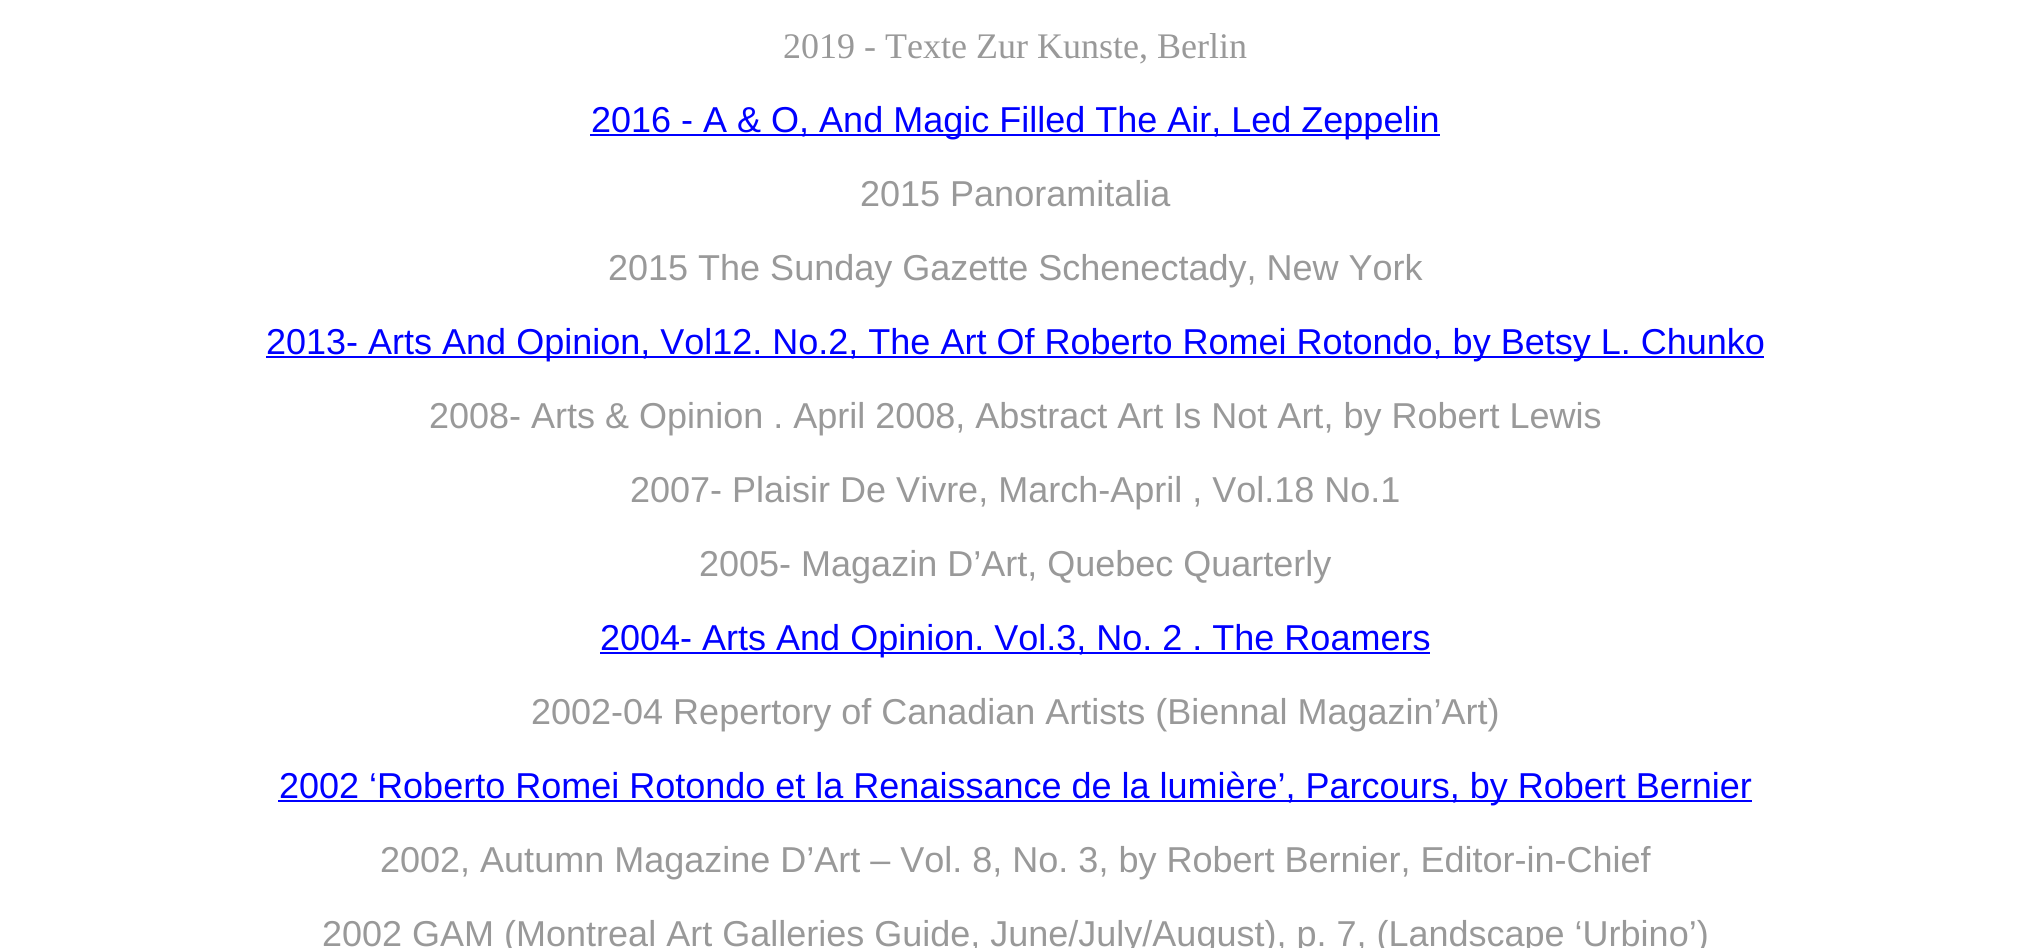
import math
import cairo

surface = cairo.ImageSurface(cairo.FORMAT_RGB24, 2030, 948)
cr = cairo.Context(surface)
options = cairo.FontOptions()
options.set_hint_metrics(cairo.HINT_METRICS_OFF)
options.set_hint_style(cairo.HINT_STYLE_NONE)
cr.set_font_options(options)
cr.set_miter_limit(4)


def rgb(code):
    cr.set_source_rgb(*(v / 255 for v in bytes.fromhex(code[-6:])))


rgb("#ffffff")
cr.paint()
for x, y, w, h, color in [
    (590, 134, 850, 2, "#0000ff"),
    (266, 356, 1498, 2, "#0000ff"),
    (600, 652, 830, 2, "#0000ff"),
    (278, 800, 1474, 2, "#0000ff"),
]:
    rgb(color)
    cr.rectangle(x, y, w, h)
    cr.fill()
cr.select_font_face("Liberation Serif")
cr.set_font_size(36)
rgb("#999999")
cr.move_to(783, 58)
cr.show_text("2019 - Texte Zur Kunste, Berlin")
cr.select_font_face("Liberation Sans")
rgb("#0000ff")
cr.move_to(591, 132)
cr.show_text("2016 - A & O, And Magic Filled The Air, Led Zeppelin")
rgb("#999999")
cr.move_to(860, 206)
cr.show_text("2015 Panoramitalia")
cr.move_to(608, 280)
cr.show_text("2015 The Sunday Gazette Schenectady, New York")
rgb("#0000ff")
cr.move_to(266, 354)
cr.show_text("2013- Arts And Opinion, Vol12. No.2, The Art Of Roberto Romei Rotondo, by Betsy L. Chunko")
rgb("#999999")
for x, y, s in [
    (429, 428, "2008- Arts & Opinion . April 2008, Abstract Art Is Not Art, by Robert Lewis"),
    (630, 502, "2007- Plaisir De Vivre, March-April , Vol.18 No.1"),
    (699, 576, "2005- Magazin D’Art, Quebec Quarterly"),
]:
    cr.move_to(x, y)
    cr.show_text(s)
rgb("#0000ff")
cr.move_to(600, 650)
cr.show_text("2004- Arts And Opinion. Vol.3, No. 2 . The Roamers")
rgb("#999999")
cr.move_to(531, 724)
cr.show_text("2002-04 Repertory of Canadian Artists (Biennal Magazin’Art)")
rgb("#0000ff")
cr.move_to(279, 798)
cr.show_text("2002 ‘Roberto Romei Rotondo et la Renaissance de la lumière’, Parcours, by Robert Bernier")
rgb("#999999")
cr.move_to(380, 872)
cr.show_text("2002, Autumn Magazine D’Art – Vol. 8, No. 3, by Robert Bernier, Editor-in-Chief")
cr.move_to(322, 946)
cr.show_text("2002 GAM (Montreal Art Galleries Guide, June/July/August), p. 7, (Landscape ‘Urbino’)")
surface.write_to_png("page.png")
